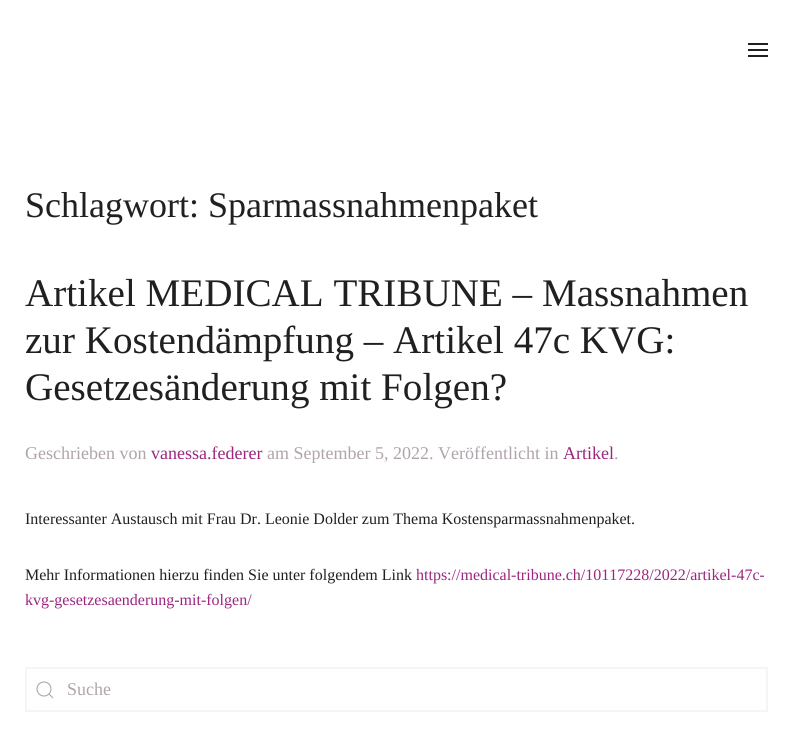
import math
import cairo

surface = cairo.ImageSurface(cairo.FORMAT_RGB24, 793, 741)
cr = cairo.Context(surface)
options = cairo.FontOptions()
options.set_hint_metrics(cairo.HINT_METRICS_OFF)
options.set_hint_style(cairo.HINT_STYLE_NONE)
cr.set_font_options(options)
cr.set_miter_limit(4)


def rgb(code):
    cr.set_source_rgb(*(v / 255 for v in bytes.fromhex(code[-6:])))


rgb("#ffffff")
cr.paint()
for x, y, w, h, color in [
    (748, 43, 20, 2, "#202020"),
    (748, 49, 20, 2, "#202020"),
    (748, 55, 20, 2, "#202020"),
]:
    rgb(color)
    cr.rectangle(x, y, w, h)
    cr.fill()
cr.rectangle(26, 668, 741, 43)
rgb("#f5f5f5")
cr.stroke()
cr.arc(44, 689, 7, 0, 2 * math.pi)
rgb("#b0a4ac")
cr.set_line_width(1.1)
cr.stroke()
cr.new_path()
cr.move_to(49, 694)
cr.line_to(53, 698)
cr.close_path()
cr.stroke()
cr.select_font_face("Liberation Serif")
cr.set_font_size(36)
rgb("#202020")
cr.move_to(25, 217)
cr.show_text("Schlagwort: Sparmassnahmenpaket")
cr.set_font_size(39.1)
for x, y, s in [
    (25, 306, "Artikel MEDICAL TRIBUNE – Massnahmen"),
    (25, 353, "zur Kostendämpfung – Artikel 47c KVG:"),
    (25, 400, "Gesetzesänderung mit Folgen?"),
]:
    cr.move_to(x, y)
    cr.show_text(s)
cr.set_font_size(18)
rgb("#b0a4ac")
cr.move_to(25, 459)
cr.show_text("Geschrieben von")
rgb("#9c267f")
cr.move_to(151, 459)
cr.show_text("vanessa.federer")
rgb("#b0a4ac")
cr.move_to(267, 459)
cr.show_text("am September 5, 2022. Veröffentlicht in")
rgb("#9c267f")
cr.move_to(563, 459)
cr.show_text("Artikel")
rgb("#b0a4ac")
cr.move_to(614, 459)
cr.show_text(".")
cr.set_font_size(16)
rgb("#202020")
cr.move_to(25, 524)
cr.show_text("Interessanter Austausch mit Frau Dr. Leonie Dolder zum Thema Kostensparmassnahmenpaket.")
cr.move_to(25, 580)
cr.show_text("Mehr Informationen hierzu finden Sie unter folgendem Link")
rgb("#9c267f")
cr.move_to(416, 580)
cr.show_text("https://medical-tribune.ch/10117228/2022/artikel-47c-")
cr.move_to(25, 605)
cr.show_text("kvg-gesetzesaenderung-mit-folgen/")
cr.set_font_size(18)
rgb("#b0a4ac")
cr.move_to(67, 695)
cr.show_text("Suche")
surface.write_to_png("page.png")
